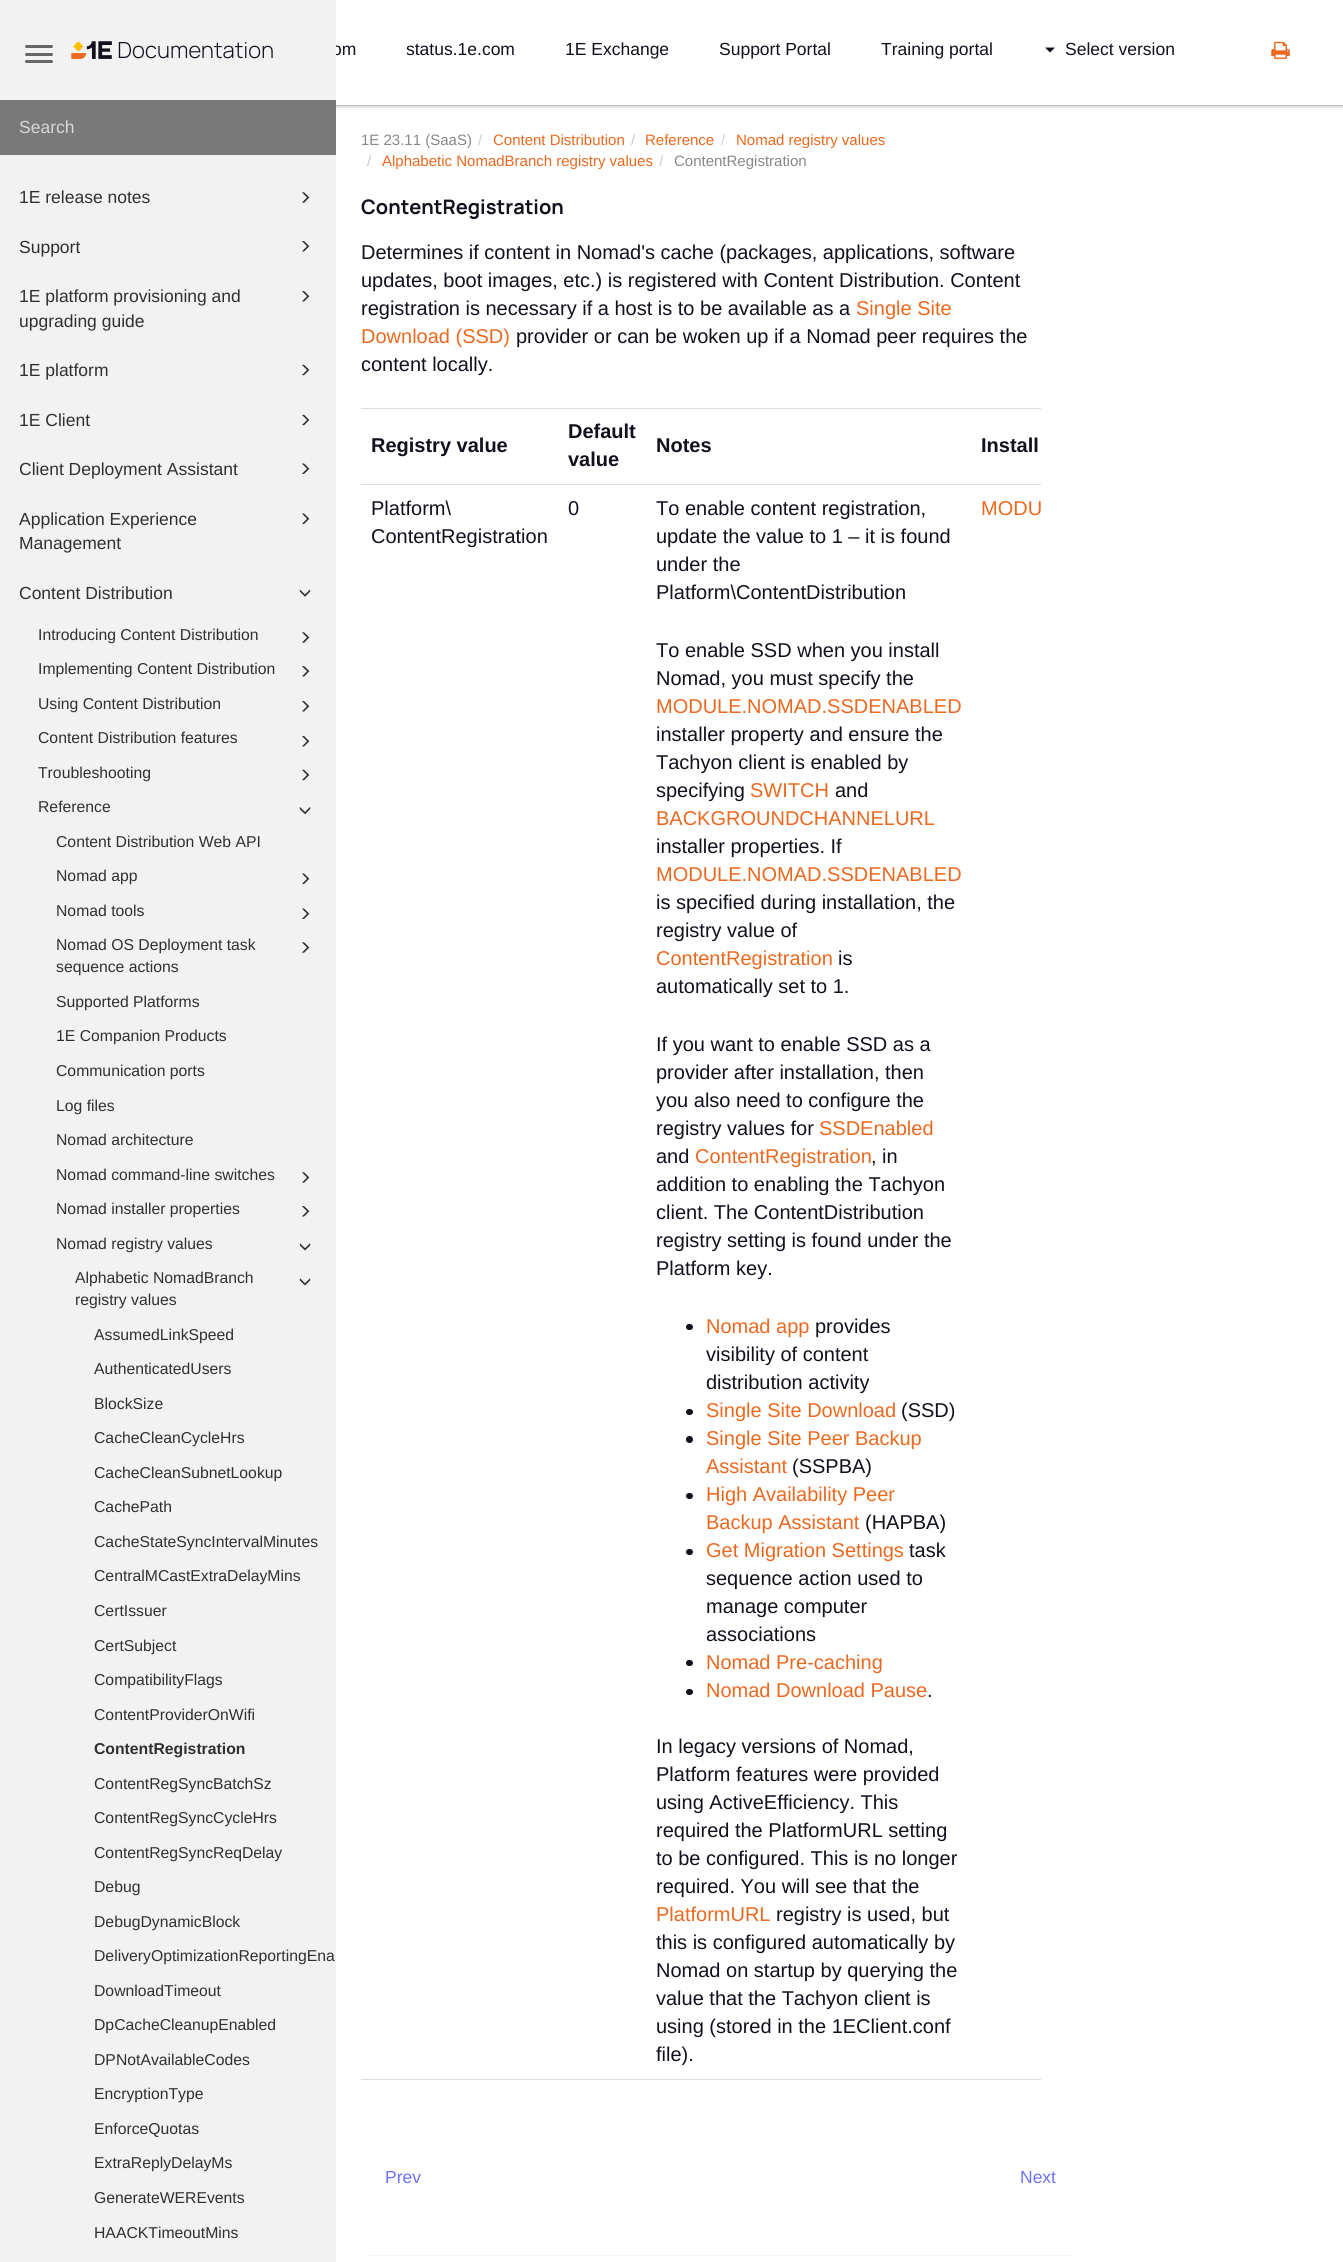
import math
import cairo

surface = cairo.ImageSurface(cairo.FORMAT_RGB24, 1343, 2262)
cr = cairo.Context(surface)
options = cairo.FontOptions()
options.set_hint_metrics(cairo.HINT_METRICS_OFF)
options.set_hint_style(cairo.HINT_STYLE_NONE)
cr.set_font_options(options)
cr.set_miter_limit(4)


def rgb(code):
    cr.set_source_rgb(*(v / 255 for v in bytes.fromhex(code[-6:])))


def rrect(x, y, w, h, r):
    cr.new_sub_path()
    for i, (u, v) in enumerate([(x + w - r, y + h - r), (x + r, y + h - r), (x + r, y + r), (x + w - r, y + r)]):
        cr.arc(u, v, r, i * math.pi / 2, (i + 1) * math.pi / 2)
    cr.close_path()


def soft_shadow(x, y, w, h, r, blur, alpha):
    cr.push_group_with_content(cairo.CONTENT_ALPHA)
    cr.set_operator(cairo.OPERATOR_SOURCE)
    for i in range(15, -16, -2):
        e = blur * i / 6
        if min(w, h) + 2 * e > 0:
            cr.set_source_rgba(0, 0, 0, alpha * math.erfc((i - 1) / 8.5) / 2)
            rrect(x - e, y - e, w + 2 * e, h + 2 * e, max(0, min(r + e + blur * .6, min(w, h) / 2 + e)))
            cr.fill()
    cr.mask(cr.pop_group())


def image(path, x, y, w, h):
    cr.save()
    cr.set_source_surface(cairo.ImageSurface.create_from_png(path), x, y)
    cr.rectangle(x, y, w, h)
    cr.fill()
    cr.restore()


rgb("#ffffff")
cr.paint()
cr.save()
cr.rectangle(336, 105, 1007, 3)
cr.clip()
rgb("#000000")
soft_shadow(-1, -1, 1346, 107, 0, 3, 0.08)
cr.restore()
cr.save()
cr.rectangle(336, 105, 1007, 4)
cr.clip()
rgb("#000000")
soft_shadow(-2, -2, 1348, 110, 0, 1, 0.1)
cr.restore()
cr.save()
cr.rectangle(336, 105, 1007, 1)
cr.clip()
rgb("#000000")
soft_shadow(-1, -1, 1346, 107, 0, 0.5, 0.14)
cr.restore()
rgb("#10111d")
cr.new_path()
cr.move_to(1045, 47.5)
cr.line_to(1055, 47.5)
cr.line_to(1050, 52.5)
cr.close_path()
cr.fill()
image("img/9.png", 1271, 41, 19, 18)
rgb("#dddddd")
cr.rectangle(361, 408, 680, 1)
cr.fill()
rgb("#10111d")
rrect(686, 1324, 7, 6, 3)
cr.fill()
rrect(686, 1409, 7, 6, 3)
cr.fill()
cr.arc(689.5, 1439.5, 3.5, 0, 2 * math.pi)
cr.fill()
rrect(686, 1493, 7, 6, 3)
cr.fill()
rrect(686, 1549, 7, 6, 3)
cr.fill()
rrect(686, 1660, 7, 6, 3)
cr.fill()
rrect(686, 1689, 7, 6, 3)
cr.fill()
for x, y, w, h, color in [
    (361, 484, 680, 1, "#dddddd"),
    (361, 2079, 680, 1, "#dddddd"),
    (368, 2255, 705, 1, "#f5f5f5"),
]:
    rgb(color)
    cr.rectangle(x, y, w, h)
    cr.fill()
cr.select_font_face("Liberation Sans")
cr.set_font_size(17.5)
rgb("#10111d")
cr.move_to(332, 55)
cr.show_text("om")
rgb("#f2f2f2")
cr.rectangle(0, 0, 336, 2262)
cr.fill()
cr.set_font_size(15.75)
rgb("#303030")
for x, y, s in [
    (94, 2238, "HAACKTimeoutMins"),
    (94, 2203, "GenerateWEREvents"),
    (94, 2168, "ExtraReplyDelayMs"),
    (94, 2134, "EnforceQuotas"),
    (94, 2099, "EncryptionType"),
    (94, 2065, "DPNotAvailableCodes"),
    (94, 2030, "DpCacheCleanupEnabled"),
    (94, 1996, "DownloadTimeout"),
    (94, 1961, "DeliveryOptimizationReportingEna"),
    (94, 1927, "DebugDynamicBlock"),
    (94, 1892, "Debug"),
    (94, 1858, "ContentRegSyncReqDelay"),
    (94, 1823, "ContentRegSyncCycleHrs"),
    (94, 1789, "ContentRegSyncBatchSz"),
]:
    cr.move_to(x, y)
    cr.show_text(s)
cr.select_font_face("Liberation Sans", cairo.FONT_SLANT_NORMAL, cairo.FONT_WEIGHT_BOLD)
cr.move_to(94, 1754)
cr.show_text("ContentRegistration")
cr.select_font_face("Liberation Sans")
for x, y, s in [
    (94, 1720, "ContentProviderOnWifi"),
    (94, 1685, "CompatibilityFlags"),
    (94, 1651, "CertSubject"),
    (94, 1616, "CertIssuer"),
    (94, 1581, "CentralMCastExtraDelayMins"),
    (94, 1547, "CacheStateSyncIntervalMinutes"),
    (94, 1512, "CachePath"),
    (94, 1478, "CacheCleanSubnetLookup"),
    (94, 1443, "CacheCleanCycleHrs"),
    (94, 1409, "BlockSize"),
    (94, 1374, "AuthenticatedUsers"),
    (94, 1340, "AssumedLinkSpeed"),
]:
    cr.move_to(x, y)
    cr.show_text(s)
image("img/8.png", 299, 1278, 12, 8)
cr.move_to(75, 1305)
cr.show_text("registry values")
cr.move_to(75, 1283)
cr.show_text("Alphabetic NomadBranch")
image("img/8.png", 299, 1243, 12, 8)
cr.move_to(56, 1249)
cr.show_text("Nomad registry values")
image("img/3.png", 302, 1206, 8, 11)
cr.move_to(56, 1214)
cr.show_text("Nomad installer properties")
image("img/2.png", 302, 1172, 8, 11)
for x, y, s in [
    (56, 1180, "Nomad command-line switches"),
    (56, 1145, "Nomad architecture"),
    (56, 1111, "Log files"),
    (56, 1076, "Communication ports"),
    (56, 1041, "1E Companion Products"),
    (56, 1007, "Supported Platforms"),
]:
    cr.move_to(x, y)
    cr.show_text(s)
image("img/2.png", 302, 942, 8, 11)
cr.move_to(56, 972)
cr.show_text("sequence actions")
cr.move_to(56, 950)
cr.show_text("Nomad OS Deployment task")
image("img/5.png", 302, 908, 8, 11)
cr.move_to(56, 916)
cr.show_text("Nomad tools")
image("img/5.png", 302, 873, 8, 11)
cr.move_to(56, 881)
cr.show_text("Nomad app")
cr.move_to(56, 847)
cr.show_text("Content Distribution Web API")
image("img/7.png", 299, 807, 12, 8)
cr.move_to(38, 812)
cr.show_text("Reference")
image("img/4.png", 302, 769, 8, 12)
cr.move_to(38, 778)
cr.show_text("Troubleshooting")
image("img/3.png", 302, 736, 8, 11)
cr.move_to(38, 743)
cr.show_text("Content Distribution features")
image("img/3.png", 302, 701, 8, 11)
cr.move_to(38, 709)
cr.show_text("Using Content Distribution")
image("img/3.png", 302, 666, 8, 11)
cr.move_to(38, 674)
cr.show_text("Implementing Content Distribution")
image("img/2.png", 302, 632, 8, 11)
cr.move_to(38, 640)
cr.show_text("Introducing Content Distribution")
image("img/6.png", 299, 589, 12, 8)
cr.set_font_size(17.5)
cr.move_to(19, 599)
cr.show_text("Content Distribution")
image("img/5.png", 302, 513, 8, 11)
cr.move_to(19, 549)
cr.show_text("Management")
cr.move_to(19, 525)
cr.show_text("Application Experience")
image("img/5.png", 302, 463, 8, 11)
cr.move_to(19, 475)
cr.show_text("Client Deployment Assistant")
image("img/4.png", 302, 414, 8, 12)
cr.move_to(19, 426)
cr.show_text("1E Client")
image("img/4.png", 302, 364, 8, 12)
cr.move_to(19, 376)
cr.show_text("1E platform")
image("img/3.png", 302, 291, 8, 11)
cr.move_to(19, 327)
cr.show_text("upgrading guide")
cr.move_to(19, 302)
cr.show_text("1E platform provisioning and")
image("img/3.png", 302, 241, 8, 11)
cr.move_to(19, 253)
cr.show_text("Support")
image("img/2.png", 302, 192, 8, 11)
cr.move_to(19, 203)
cr.show_text("1E release notes")
rgb("#666666")
rrect(25, 60, 28, 3, 1.5)
cr.fill()
rrect(25, 53, 28, 3, 1.5)
cr.fill()
rrect(25, 45, 28, 3, 1.5)
cr.fill()
rgb("#797979")
cr.rectangle(0, 100, 336, 55)
cr.fill()
rgb("#d7d7d7")
cr.move_to(19, 133)
cr.show_text("Search")
image("img/1.png", 71, 41, 202, 18)
rgb("#10111d")
for x, y, s in [
    (406, 55, "status.1e.com"),
    (565, 55, "1E Exchange"),
    (719, 55, "Support Portal"),
    (881, 55, "Training portal"),
    (1065, 55, "Select version"),
]:
    cr.move_to(x, y)
    cr.show_text(s)
cr.set_font_size(15)
rgb("#888888")
cr.move_to(361, 145)
cr.show_text("1E 23.11 (SaaS)")
rgb("#cccccc")
cr.move_to(478, 145)
cr.show_text("/")
rgb("#ed681e")
cr.move_to(493, 145)
cr.show_text("Content Distribution")
rgb("#cccccc")
cr.move_to(631, 145)
cr.show_text("/")
rgb("#ed681e")
cr.move_to(645, 145)
cr.show_text("Reference")
rgb("#cccccc")
cr.move_to(721, 145)
cr.show_text("/")
rgb("#ed681e")
cr.move_to(736, 145)
cr.show_text("Nomad registry values")
rgb("#cccccc")
cr.move_to(367, 166)
cr.show_text("/")
rgb("#ed681e")
cr.move_to(382, 166)
cr.show_text("Alphabetic NomadBranch registry values")
rgb("#cccccc")
cr.move_to(659, 166)
cr.show_text("/")
rgb("#888888")
cr.move_to(674, 166)
cr.show_text("ContentRegistration")
cr.select_font_face("Manrope", cairo.FONT_SLANT_NORMAL, cairo.FONT_WEIGHT_BOLD)
cr.set_font_size(20)
rgb("#10111d")
cr.move_to(361, 214)
cr.show_text("ContentRegistration")
cr.select_font_face("Liberation Sans")
for x, y, s in [
    (361, 259, "Determines if content in Nomad's cache (packages, applications, software"),
    (361, 287, "updates, boot images, etc.) is registered with Content Distribution. Content"),
    (361, 315, "registration is necessary if a host is to be available as a"),
]:
    cr.move_to(x, y)
    cr.show_text(s)
rgb("#ed681e")
cr.move_to(856, 315)
cr.show_text("Single Site")
cr.move_to(361, 343)
cr.show_text("Download (SSD)")
rgb("#10111d")
cr.move_to(516, 343)
cr.show_text("provider or can be woken up if a Nomad peer requires the")
cr.move_to(361, 371)
cr.show_text("content locally.")
cr.select_font_face("Liberation Sans", cairo.FONT_SLANT_NORMAL, cairo.FONT_WEIGHT_BOLD)
for x, y, s in [
    (371, 452, "Registry value"),
    (568, 438, "Default"),
    (568, 466, "value"),
    (656, 452, "Notes"),
    (981, 452, "Install"),
]:
    cr.move_to(x, y)
    cr.show_text(s)
cr.select_font_face("Liberation Sans")
for x, y, s in [
    (371, 515, "Platform\\"),
    (371, 543, "ContentRegistration"),
    (568, 515, "0"),
    (656, 515, "To enable content registration,"),
    (656, 543, "update the value to 1 – it is found"),
    (656, 571, "under the"),
    (656, 599, "Platform\\ContentDistribution"),
    (656, 657, "To enable SSD when you install"),
    (656, 685, "Nomad, you must specify the"),
]:
    cr.move_to(x, y)
    cr.show_text(s)
rgb("#ed681e")
cr.move_to(656, 713)
cr.show_text("MODULE.NOMAD.SSDENABLED")
rgb("#10111d")
for x, y, s in [
    (656, 741, "installer property and ensure the"),
    (656, 769, "Tachyon client is enabled by"),
    (656, 797, "specifying"),
]:
    cr.move_to(x, y)
    cr.show_text(s)
rgb("#ed681e")
cr.move_to(750, 797)
cr.show_text("SWITCH")
rgb("#10111d")
cr.move_to(835, 797)
cr.show_text("and")
rgb("#ed681e")
cr.move_to(656, 825)
cr.show_text("BACKGROUNDCHANNELURL")
rgb("#10111d")
cr.move_to(656, 853)
cr.show_text("installer properties. If")
rgb("#ed681e")
cr.move_to(656, 881)
cr.show_text("MODULE.NOMAD.SSDENABLED")
rgb("#10111d")
cr.move_to(656, 909)
cr.show_text("is specified during installation, the")
cr.move_to(656, 937)
cr.show_text("registry value of")
rgb("#ed681e")
cr.move_to(656, 965)
cr.show_text("ContentRegistration")
rgb("#10111d")
for x, y, s in [
    (838, 965, "is"),
    (656, 993, "automatically set to 1."),
    (656, 1051, "If you want to enable SSD as a"),
    (656, 1079, "provider after installation, then"),
    (656, 1107, "you also need to configure the"),
    (656, 1135, "registry values for"),
]:
    cr.move_to(x, y)
    cr.show_text(s)
rgb("#ed681e")
cr.move_to(819, 1135)
cr.show_text("SSDEnabled")
rgb("#10111d")
cr.move_to(656, 1163)
cr.show_text("and")
rgb("#ed681e")
cr.move_to(695, 1163)
cr.show_text("ContentRegistration")
rgb("#10111d")
for x, y, s in [
    (871, 1163, ", in"),
    (656, 1191, "addition to enabling the Tachyon"),
    (656, 1219, "client. The ContentDistribution"),
    (656, 1247, "registry setting is found under the"),
    (656, 1275, "Platform key."),
]:
    cr.move_to(x, y)
    cr.show_text(s)
rgb("#ed681e")
cr.move_to(706, 1333)
cr.show_text("Nomad app")
rgb("#10111d")
for x, y, s in [
    (815, 1333, "provides"),
    (706, 1361, "visibility of content"),
    (706, 1389, "distribution activity"),
]:
    cr.move_to(x, y)
    cr.show_text(s)
rgb("#ed681e")
cr.move_to(706, 1417)
cr.show_text("Single Site Download")
rgb("#10111d")
cr.move_to(901, 1417)
cr.show_text("(SSD)")
rgb("#ed681e")
cr.move_to(706, 1445)
cr.show_text("Single Site Peer Backup")
cr.move_to(706, 1473)
cr.show_text("Assistant")
rgb("#10111d")
cr.move_to(792, 1473)
cr.show_text("(SSPBA)")
rgb("#ed681e")
cr.move_to(706, 1501)
cr.show_text("High Availability Peer")
cr.move_to(706, 1529)
cr.show_text("Backup Assistant")
rgb("#10111d")
cr.move_to(865, 1529)
cr.show_text("(HAPBA)")
rgb("#ed681e")
cr.move_to(706, 1557)
cr.show_text("Get Migration Settings")
rgb("#10111d")
for x, y, s in [
    (909, 1557, "task"),
    (706, 1585, "sequence action used to"),
    (706, 1613, "manage computer"),
    (706, 1641, "associations"),
]:
    cr.move_to(x, y)
    cr.show_text(s)
rgb("#ed681e")
cr.move_to(706, 1669)
cr.show_text("Nomad Pre-caching")
cr.move_to(706, 1697)
cr.show_text("Nomad Download Pause")
rgb("#10111d")
for x, y, s in [
    (927, 1697, "."),
    (656, 1753, "In legacy versions of Nomad,"),
    (656, 1781, "Platform features were provided"),
    (656, 1809, "using ActiveEfficiency. This"),
    (656, 1837, "required the PlatformURL setting"),
    (656, 1865, "to be configured. This is no longer"),
    (656, 1893, "required. You will see that the"),
]:
    cr.move_to(x, y)
    cr.show_text(s)
rgb("#ed681e")
cr.move_to(656, 1921)
cr.show_text("PlatformURL")
rgb("#10111d")
for x, y, s in [
    (776, 1921, "registry is used, but"),
    (656, 1949, "this is configured automatically by"),
    (656, 1977, "Nomad on startup by querying the"),
    (656, 2005, "value that the Tachyon client is"),
    (656, 2033, "using (stored in the 1EClient.conf"),
    (656, 2061, "file)."),
]:
    cr.move_to(x, y)
    cr.show_text(s)
rgb("#ed681e")
cr.move_to(981, 515)
cr.show_text("MODU")
cr.set_font_size(17.5)
rgb("#6c72ff")
cr.move_to(385, 2183)
cr.show_text("Prev")
cr.move_to(1020, 2183)
cr.show_text("Next")
surface.write_to_png("page.png")
